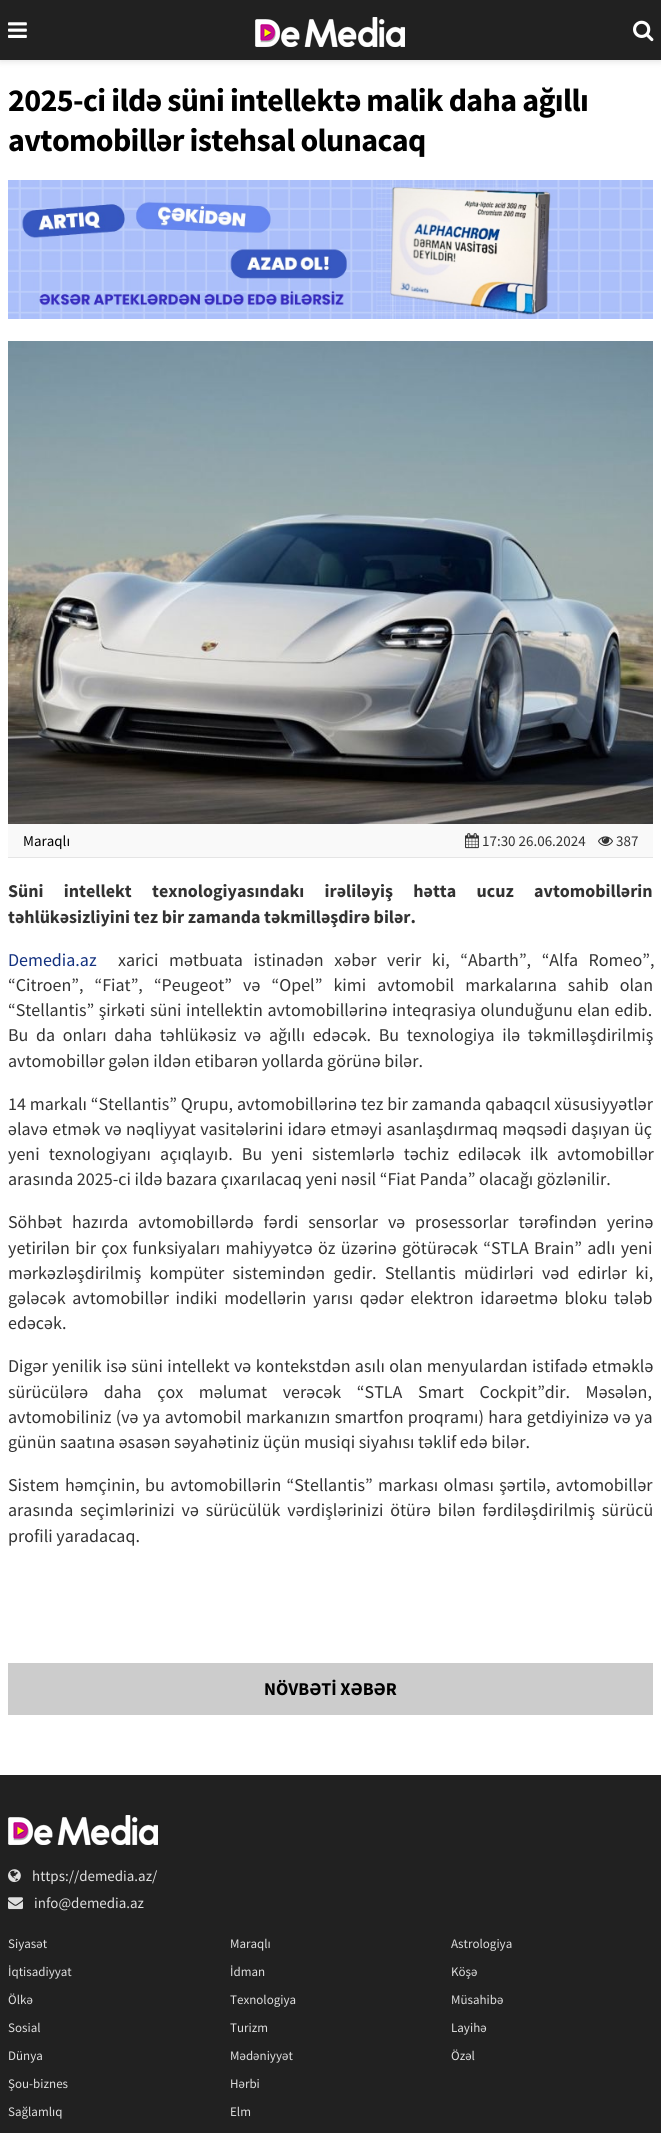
import math
import cairo

surface = cairo.ImageSurface(cairo.FORMAT_RGB24, 661, 2133)
cr = cairo.Context(surface)
options = cairo.FontOptions()
options.set_hint_metrics(cairo.HINT_METRICS_OFF)
options.set_hint_style(cairo.HINT_STYLE_NONE)
cr.set_font_options(options)
cr.set_miter_limit(4)


def rgb(code):
    cr.set_source_rgb(*(v / 255 for v in bytes.fromhex(code[-6:])))


def tracked(x, y, s, letter, word):
    cr.move_to(x, y)
    for ch in s:
        cr.show_text(ch)
        cr.rel_move_to(letter + word * (ch == ' '), 0)


def rrect(x, y, w, h, r):
    cr.new_sub_path()
    for i, (u, v) in enumerate([(x + w - r, y + h - r), (x + r, y + h - r), (x + r, y + r), (x + w - r, y + r)]):
        cr.arc(u, v, r, i * math.pi / 2, (i + 1) * math.pi / 2)
    cr.close_path()


def soft_shadow(x, y, w, h, r, blur, alpha):
    cr.push_group_with_content(cairo.CONTENT_ALPHA)
    cr.set_operator(cairo.OPERATOR_SOURCE)
    for i in range(15, -16, -2):
        e = blur * i / 6
        if min(w, h) + 2 * e > 0:
            cr.set_source_rgba(0, 0, 0, alpha * math.erfc((i - 1) / 8.5) / 2)
            rrect(x - e, y - e, w + 2 * e, h + 2 * e, max(0, min(r + e + blur * .6, min(w, h) / 2 + e)))
            cr.fill()
    cr.mask(cr.pop_group())


def image(path, x, y, w, h):
    cr.save()
    cr.set_source_surface(cairo.ImageSurface.create_from_png(path), x, y)
    cr.rectangle(x, y, w, h)
    cr.fill()
    cr.restore()


rgb("#ffffff")
cr.paint()
rgb("#000000")
soft_shadow(0, 2, 661, 60, 0, 3, 0.1)
rgb("#212121")
cr.rectangle(0, 0, 661, 60)
cr.fill()
image("img/1.png", 8, 22, 19, 16)
image("img/2.png", 255, 17, 150, 30)
image("img/3.png", 633, 20, 21, 22)
image("img/4.png", 8, 180, 645, 139)
image("img/5.png", 8, 341, 645, 483)
rgb("#f9f9f9")
cr.rectangle(8, 824, 645, 33)
cr.fill()
rgb("#e5e5e5")
cr.rectangle(8, 857, 645, 1)
cr.fill()
image("img/6.png", 465, 833, 14, 16)
image("img/7.png", 598, 836, 15, 10)
rgb("#cccccc")
cr.rectangle(8, 1663, 645, 52)
cr.fill()
rgb("#212121")
cr.rectangle(0, 1775, 661, 358)
cr.fill()
image("img/2.png", 8, 1815, 150, 30)
image("img/8.png", 8, 1869, 13, 14)
image("img/9.png", 8, 1897, 15, 13)
cr.select_font_face("Source Sans Pro", cairo.FONT_SLANT_NORMAL, cairo.FONT_WEIGHT_BOLD)
cr.set_font_size(32)
rgb("#000000")
tracked(8, 111, "2025-ci ildə süni intellektə malik daha ağıllı", -0.65, 0)
tracked(8, 151, "avtomobillər istehsal olunacaq", -0.65, 0)
cr.select_font_face("Source Sans Pro")
cr.set_font_size(15)
cr.move_to(23, 846)
cr.show_text("Maraqlı")
rgb("#333333")
cr.move_to(482, 846)
cr.show_text("17:30 26.06.2024")
cr.move_to(616, 846)
cr.show_text("387")
cr.select_font_face("Source Sans Pro", cairo.FONT_SLANT_NORMAL, cairo.FONT_WEIGHT_BOLD)
cr.set_font_size(18)
tracked(8, 897, "Süni intellekt texnologiyasındakı irəliləyiş hətta ucuz avtomobillərin", 0, 16.75)
cr.move_to(8, 923)
cr.show_text("təhlükəsizliyini tez bir zamanda təkmilləşdirə bilər.")
cr.select_font_face("Source Sans Pro")
rgb("#13317f")
cr.move_to(8, 966)
cr.show_text("Demedia.az")
rgb("#333333")
tracked(118, 966, "xarici mətbuata istinadən xəbər verir ki, “Abarth”, “Alfa Romeo”,", 0, 7)
tracked(8, 991, "“Citroen”, “Fiat”, “Peugeot” və “Opel” kimi avtomobil markalarına sahib olan", 0, 7.5)
tracked(8, 1016, "“Stellantis” şirkəti süni intellektin avtomobillərinə inteqrasiya olunduğunu elan edib.", 0, 1)
tracked(8, 1041, "Bu da onları daha təhlükəsiz və ağıllı edəcək. Bu texnologiya ilə təkmilləşdirilmiş", 0, 4)
cr.move_to(8, 1067)
cr.show_text("avtomobillər gələn ildən etibarən yollarda görünə bilər.")
tracked(8, 1110, "14 markalı “Stellantis” Qrupu, avtomobillərinə tez bir zamanda qabaqcıl xüsusiyyətlər", 0, 0.25)
tracked(8, 1135, "əlavə etmək və nəqliyyat vasitələrini idarə etməyi asanlaşdırmaq məqsədi daşıyan üç", 0, 0.75)
tracked(8, 1160, "yeni texnologiyanı açıqlayıb. Bu yeni sistemlərlə təchiz ediləcək ilk avtomobillər", 0, 5.5)
cr.move_to(8, 1185)
cr.show_text("arasında 2025-ci ildə bazara çıxarılacaq yeni nəsil “Fiat Panda” olacağı gözlənilir.")
tracked(8, 1228, "Söhbət hazırda avtomobillərdə fərdi sensorlar və prosessorlar tərəfindən yerinə", 0, 6.25)
tracked(8, 1254, "yetirilən bir çox funksiyaları mahiyyətcə öz üzərinə götürəcək “STLA Brain” adlı yeni", 0, 1.75)
tracked(8, 1279, "mərkəzləşdirilmiş kompüter sistemindən gedir. Stellantis müdirləri vəd edirlər ki,", 0, 4.75)
tracked(8, 1304, "gələcək avtomobillər indiki modellərin yarısı qədər elektron idarəetmə bloku tələb", 0, 3)
cr.move_to(8, 1329)
cr.show_text("edəcək.")
tracked(8, 1372, "Digər yenilik isə süni intellekt və kontekstdən asılı olan menyulardan istifadə etməklə", 0, 0.75)
tracked(8, 1398, "sürücülərə daha çox məlumat verəcək “STLA Smart Cockpit”dir. Məsələn,", 0, 12)
tracked(8, 1423, "avtomobiliniz (və ya avtomobil markanızın smartfon proqramı) hara getdiyinizə və ya", 0, 0.75)
cr.move_to(8, 1448)
cr.show_text("günün saatına əsasən səyahətiniz üçün musiqi siyahısı təklif edə bilər.")
tracked(8, 1491, "Sistem həmçinin, bu avtomobillərin “Stellantis” markası olması şərtilə, avtomobillər", 0, 1.75)
tracked(8, 1516, "arasında seçimlərinizi və sürücülük vərdişlərinizi ötürə bilən fərdiləşdirilmiş sürücü", 0, 3.25)
cr.move_to(8, 1542)
cr.show_text("profili yaradacaq.")
cr.select_font_face("Source Sans Pro", cairo.FONT_SLANT_NORMAL, cairo.FONT_WEIGHT_BOLD)
rgb("#000000")
cr.move_to(264, 1695)
cr.show_text("NÖVBƏTİ XƏBƏR")
cr.select_font_face("Source Sans Pro")
cr.set_font_size(15)
rgb("#e0e0e0")
cr.move_to(32, 1881)
cr.show_text("https://demedia.az/")
cr.move_to(34, 1908)
cr.show_text("info@demedia.az")
cr.set_font_size(13)
for x, y, s in [
    (8, 1948, "Siyasət"),
    (230, 1948, "Maraqlı"),
    (451, 1948, "Astrologiya"),
    (8, 1976, "İqtisadiyyat"),
    (230, 1976, "İdman"),
    (451, 1976, "Köşə"),
    (8, 2004, "Ölkə"),
    (230, 2004, "Texnologiya"),
    (451, 2004, "Müsahibə"),
    (8, 2032, "Sosial"),
    (230, 2032, "Turizm"),
    (451, 2032, "Layihə"),
    (8, 2060, "Dünya"),
    (230, 2060, "Mədəniyyət"),
    (451, 2060, "Özəl"),
    (8, 2088, "Şou-biznes"),
    (230, 2088, "Hərbi"),
    (8, 2116, "Sağlamlıq"),
    (230, 2116, "Elm"),
]:
    cr.move_to(x, y)
    cr.show_text(s)
surface.write_to_png("page.png")
